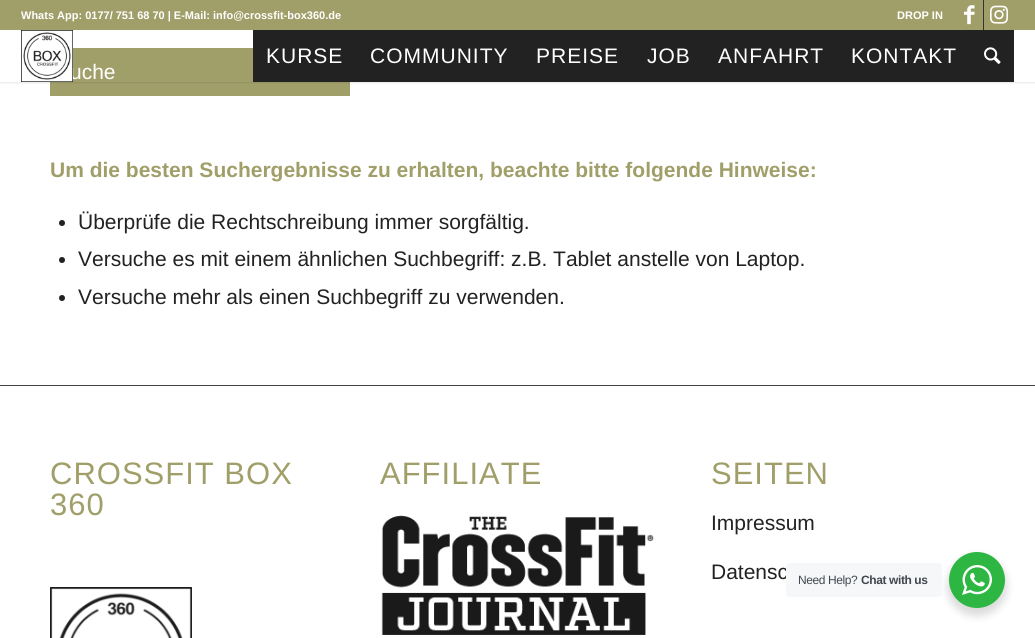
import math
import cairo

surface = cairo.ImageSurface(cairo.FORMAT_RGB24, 1035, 638)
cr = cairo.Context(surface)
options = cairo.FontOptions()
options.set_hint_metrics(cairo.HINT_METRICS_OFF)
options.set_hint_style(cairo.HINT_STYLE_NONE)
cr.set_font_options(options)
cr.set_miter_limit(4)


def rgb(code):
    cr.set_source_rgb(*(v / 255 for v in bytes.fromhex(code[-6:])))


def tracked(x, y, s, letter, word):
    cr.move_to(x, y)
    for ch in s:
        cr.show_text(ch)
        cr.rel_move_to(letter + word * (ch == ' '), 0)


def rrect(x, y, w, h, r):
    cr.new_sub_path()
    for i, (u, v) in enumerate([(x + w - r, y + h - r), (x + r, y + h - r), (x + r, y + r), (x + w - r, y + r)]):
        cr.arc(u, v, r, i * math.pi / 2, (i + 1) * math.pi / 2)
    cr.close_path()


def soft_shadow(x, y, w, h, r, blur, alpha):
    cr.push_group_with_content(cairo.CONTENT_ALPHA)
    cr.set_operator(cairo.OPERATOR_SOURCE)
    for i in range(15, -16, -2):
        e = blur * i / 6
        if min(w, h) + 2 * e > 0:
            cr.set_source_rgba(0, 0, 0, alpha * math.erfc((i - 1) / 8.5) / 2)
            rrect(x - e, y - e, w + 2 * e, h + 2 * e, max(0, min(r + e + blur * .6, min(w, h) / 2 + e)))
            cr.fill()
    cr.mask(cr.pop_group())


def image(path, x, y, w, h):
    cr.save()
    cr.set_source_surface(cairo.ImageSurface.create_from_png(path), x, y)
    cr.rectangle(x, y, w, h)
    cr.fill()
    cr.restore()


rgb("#ffffff")
cr.paint()
rgb("#a19f69")
cr.rectangle(50, 48, 300, 48)
cr.fill()
cr.save()
cr.rectangle(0, 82, 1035, 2)
cr.clip()
rgb("#000000")
soft_shadow(-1, -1, 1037, 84, 0, 1, 0.1)
cr.restore()
cr.rectangle(0, 0, 1035, 30)
cr.fill()
rgb("#333333")
cr.rectangle(983, 0, 1, 30)
cr.fill()
image("img/1.png", 964, 5, 11, 20)
image("img/2.png", 990, 5, 18, 19)
rgb("#222222")
cr.rectangle(253, 30, 761, 52)
cr.fill()
image("img/4.png", 984, 47, 17, 17)
cr.arc(62, 223, 3, 0, 2 * math.pi)
cr.fill()
cr.arc(62, 260, 3, 0, 2 * math.pi)
cr.fill()
cr.arc(62, 298, 3, 0, 2 * math.pi)
cr.fill()
rgb("#444444")
cr.rectangle(0, 385, 1035, 1)
cr.fill()
image("img/5.png", 50, 587, 142, 51)
image("img/6.png", 381, 515, 273, 120)
rgb("#000000")
soft_shadow(947, 556, 60, 60, 30, 4, 0.14)
rgb("#2db742")
cr.arc(977, 580, 28, 0, 2 * math.pi)
cr.fill()
image("img/7.png", 962, 565, 30, 30)
cr.select_font_face("Liberation Sans", cairo.FONT_SLANT_NORMAL, cairo.FONT_WEIGHT_BOLD)
cr.set_font_size(11)
rgb("#ffffff")
cr.move_to(21, 19)
cr.show_text("Whats App: 0177/ 751 68 70 | E-Mail: info@crossfit-box360.de")
cr.move_to(897, 19)
cr.show_text("DROP IN")
cr.select_font_face("Liberation Sans")
cr.set_font_size(21)
for x, y, s in [
    (266, 63, "KURSE"),
    (370, 63, "COMMUNITY"),
    (536, 63, "PREISE"),
    (647, 63, "JOB"),
    (718, 63, "ANFAHRT"),
    (851, 63, "KONTAKT"),
]:
    tracked(x, y, s, 1, 0)
cr.move_to(70, 79)
cr.show_text("uche")
image("img/3.png", 21, 30, 52, 52)
cr.select_font_face("Liberation Sans", cairo.FONT_SLANT_NORMAL, cairo.FONT_WEIGHT_BOLD)
rgb("#a19f69")
cr.move_to(50, 177)
cr.show_text("Um die besten Suchergebnisse zu erhalten, beachte bitte folgende Hinweise:")
cr.select_font_face("Liberation Sans")
rgb("#222222")
for x, y, s in [
    (78, 229, "Überprüfe die Rechtschreibung immer sorgfältig."),
    (78, 266, "Versuche es mit einem ähnlichen Suchbegriff: z.B. Tablet anstelle von Laptop."),
    (78, 304, "Versuche mehr als einen Suchbegriff zu verwenden."),
]:
    cr.move_to(x, y)
    cr.show_text(s)
cr.set_font_size(31)
rgb("#a19f69")
for x, y, s in [
    (50, 484, "CROSSFIT BOX"),
    (50, 515, "360"),
    (380, 484, "AFFILIATE"),
    (711, 484, "SEITEN"),
]:
    tracked(x, y, s, 1, 0)
cr.set_font_size(21)
rgb("#222222")
cr.move_to(711, 530)
cr.show_text("Impressum")
cr.move_to(711, 579)
cr.show_text("Datensc")
rgb("#f5f7f9")
rrect(786, 563, 156, 34, 4)
cr.fill()
cr.set_font_size(12)
rgb("#43474e")
tracked(798, 584, "Need Help?", -0.4, 0)
cr.select_font_face("Liberation Sans", cairo.FONT_SLANT_NORMAL, cairo.FONT_WEIGHT_BOLD)
tracked(861, 584, "Chat with us", -0.4, 0)
surface.write_to_png("page.png")
